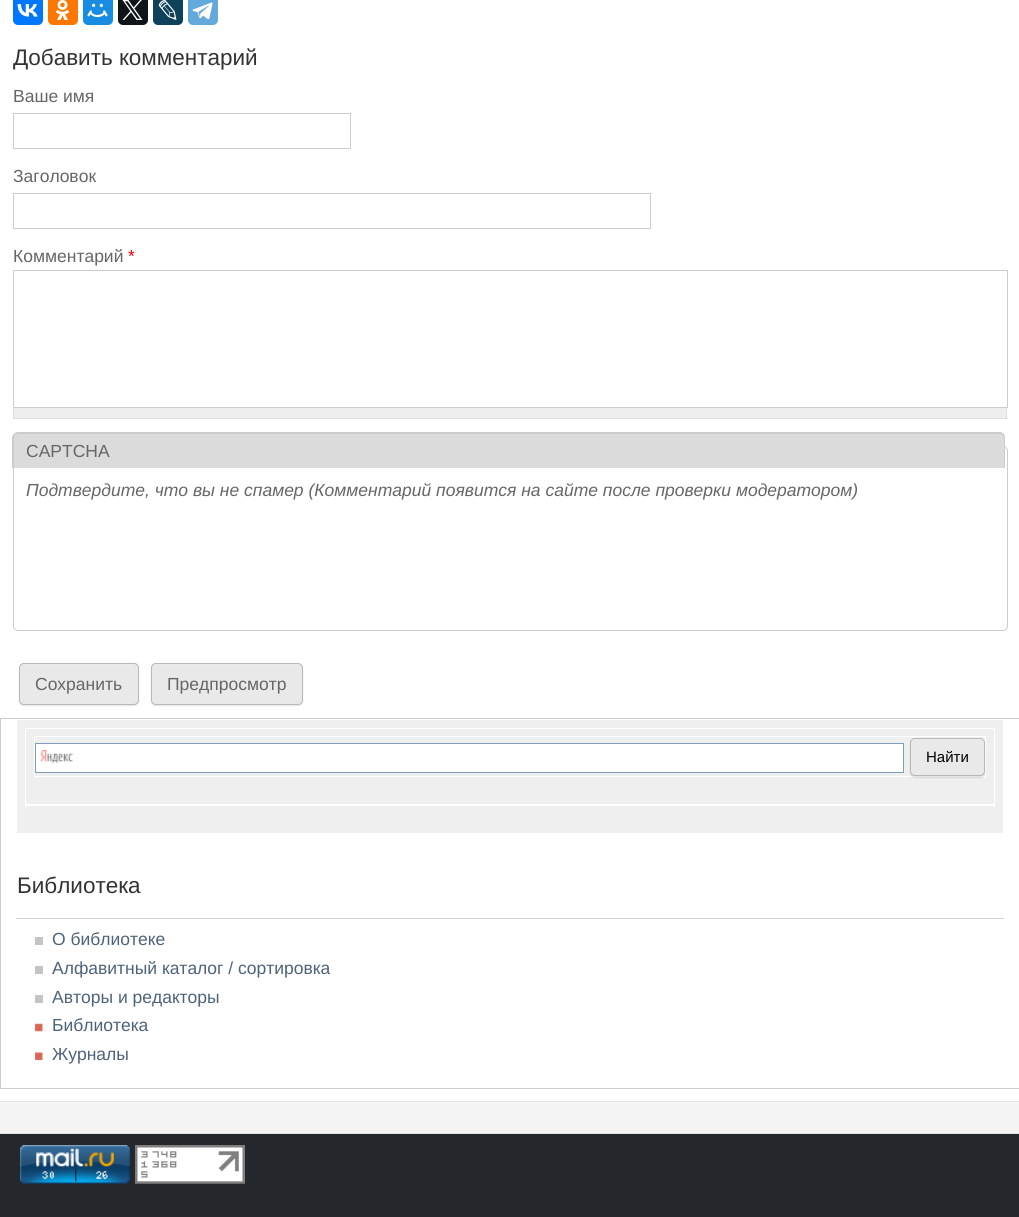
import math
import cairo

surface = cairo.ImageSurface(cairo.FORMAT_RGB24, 1019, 1217)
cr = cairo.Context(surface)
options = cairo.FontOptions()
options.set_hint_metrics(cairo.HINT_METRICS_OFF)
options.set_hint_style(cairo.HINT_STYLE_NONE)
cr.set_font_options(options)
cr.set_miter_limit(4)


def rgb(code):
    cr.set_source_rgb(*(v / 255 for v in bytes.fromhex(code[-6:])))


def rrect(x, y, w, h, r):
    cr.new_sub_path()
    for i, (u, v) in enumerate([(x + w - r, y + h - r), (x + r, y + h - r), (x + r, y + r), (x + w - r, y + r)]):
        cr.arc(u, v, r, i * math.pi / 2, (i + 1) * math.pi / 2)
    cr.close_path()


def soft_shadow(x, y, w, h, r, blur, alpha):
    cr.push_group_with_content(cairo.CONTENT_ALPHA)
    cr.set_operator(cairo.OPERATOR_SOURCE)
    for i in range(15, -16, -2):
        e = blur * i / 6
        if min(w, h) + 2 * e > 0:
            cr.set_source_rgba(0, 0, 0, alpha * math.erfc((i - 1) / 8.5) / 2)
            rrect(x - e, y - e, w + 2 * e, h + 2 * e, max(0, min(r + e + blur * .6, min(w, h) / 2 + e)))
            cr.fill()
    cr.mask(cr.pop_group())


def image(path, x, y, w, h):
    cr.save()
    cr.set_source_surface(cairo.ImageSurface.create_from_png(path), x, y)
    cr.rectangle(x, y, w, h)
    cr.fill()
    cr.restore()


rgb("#ffffff")
cr.paint()
rgb("#0077ff")
rrect(13, -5, 30, 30, 5)
cr.fill()
image("img/1.png", 17, 4, 21, 13)
rgb("#ff7700")
rrect(48, -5, 30, 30, 5)
cr.fill()
image("img/2.png", 55, 0, 15, 20)
rgb("#168de2")
rrect(83, -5, 30, 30, 5)
cr.fill()
image("img/3.png", 87, 3, 21, 15)
rgb("#0f1419")
rrect(118, -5, 30, 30, 5)
cr.fill()
image("img/4.png", 122, 0, 21, 20)
rgb("#0d425a")
rrect(153, -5, 30, 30, 5)
cr.fill()
image("img/5.png", 158, 0, 19, 20)
rgb("#64a9dc")
rrect(188, -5, 30, 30, 5)
cr.fill()
image("img/6.png", 192, 2, 21, 18)
cr.rectangle(13.5, 113.5, 337, 35)
rgb("#cccccc")
cr.set_line_width(1)
cr.stroke()
cr.rectangle(13.5, 193.5, 637, 35)
cr.stroke()
cr.rectangle(13.5, 270.5, 994, 137)
cr.stroke()
for x, y, w, h, color in [
    (14, 408, 992, 10, "#eeeeee"),
    (1006, 408, 1, 11, "#dddddd"),
    (13, 418, 995, 1, "#dddddd"),
    (13, 408, 1, 11, "#dddddd"),
]:
    rgb(color)
    cr.rectangle(x, y, w, h)
    cr.fill()
rrect(13.5, 446.5, 994, 184, 4.5)
rgb("#cccccc")
cr.stroke()
rgb("#dbdbdb")
cr.new_path()
cr.move_to(18, 433)
cr.line_to(1000, 433)
cr.curve_to(1003, 433, 1005, 435, 1005, 438)
cr.line_to(1005, 468)
cr.line_to(13, 468)
cr.line_to(13, 438)
cr.curve_to(13, 435, 15, 433, 18, 433)
cr.close_path()
cr.fill()
rgb("#cccccc")
cr.set_fill_rule(cairo.FILL_RULE_EVEN_ODD)
cr.new_path()
cr.move_to(18, 432)
cr.line_to(1000, 432)
cr.curve_to(1003, 432, 1005, 435, 1005, 438)
cr.line_to(1005, 468)
cr.line_to(12, 468)
cr.line_to(12, 438)
cr.curve_to(12, 435, 15, 432, 18, 432)
cr.close_path()
cr.move_to(18, 434)
cr.line_to(1000, 434)
cr.curve_to(1002, 434, 1004, 435, 1004, 438)
cr.line_to(1004, 468)
cr.line_to(14, 468)
cr.line_to(14, 438)
cr.curve_to(14, 435, 15, 434, 18, 434)
cr.close_path()
cr.fill()
rgb("#000000")
soft_shadow(19, 664, 120, 42, 5, 0.5, 0.1)
rgb("#e9e9e9")
rrect(19, 663, 120, 42, 5)
cr.fill()
rgb("#ececec")
cr.set_fill_rule(cairo.FILL_RULE_WINDING)
cr.new_path()
cr.move_to(24, 665)
cr.line_to(134, 665)
cr.curve_to(136, 665, 138, 667, 138, 669)
cr.curve_to(138, 659, 119, 664, 116, 664)
cr.line_to(42, 664)
cr.curve_to(39, 664, 20, 659, 20, 669)
cr.curve_to(20, 667, 22, 665, 24, 665)
cr.close_path()
cr.fill()
rrect(19.5, 663.5, 119, 41, 4.5)
rgb("#b8b8b8")
cr.stroke()
rgb("#000000")
soft_shadow(151, 664, 152, 42, 5, 0.5, 0.1)
rgb("#e9e9e9")
rrect(151, 663, 152, 42, 5)
cr.fill()
rgb("#ececec")
cr.new_path()
cr.move_to(156, 665)
cr.line_to(298, 665)
cr.curve_to(300, 665, 301, 667, 301, 669)
cr.curve_to(301, 667, 301, 666, 299, 665)
cr.line_to(297, 664)
cr.line_to(155, 664)
cr.line_to(154, 666)
cr.close_path()
cr.fill()
rrect(151.5, 663.5, 151, 41, 4.5)
rgb("#b8b8b8")
cr.stroke()
cr.rectangle(0.5, 718.5, 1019, 370)
rgb("#cccccc")
cr.stroke()
for x, y, w, h, color in [
    (17, 720, 986, 113, "#efefef"),
    (25, 728, 970, 1, "#ffffff"),
    (994, 728, 1, 78, "#ffffff"),
    (25, 805, 970, 1, "#ffffff"),
    (25, 728, 1, 78, "#ffffff"),
    (34, 736, 952, 1, "#ffffff"),
    (985, 736, 1, 42, "#ffffff"),
    (34, 776, 952, 1, "#ffffff"),
    (34, 736, 1, 42, "#ffffff"),
    (36, 744, 867, 28, "#ffffff"),
]:
    rgb(color)
    cr.rectangle(x, y, w, h)
    cr.fill()
image("img/7.png", 40, 750, 33, 14)
cr.rectangle(35.5, 743.5, 868, 29)
rgb("#7f9db9")
cr.stroke()
rgb("#000000")
soft_shadow(910, 739, 75, 39, 5, 0.5, 0.1)
rgb("#e9e9e9")
rrect(910, 738, 75, 38, 5)
cr.fill()
rgb("#ececec")
cr.new_path()
cr.move_to(915, 740)
cr.line_to(980, 740)
cr.curve_to(982, 740, 984, 742, 984, 744)
cr.curve_to(984, 736, 974, 739, 969, 739)
cr.line_to(926, 739)
cr.curve_to(921, 739, 911, 736, 911, 744)
cr.curve_to(911, 742, 913, 740, 915, 740)
cr.close_path()
cr.fill()
rrect(910.5, 738.5, 74, 37, 4.5)
rgb("#b8b8b8")
cr.stroke()
for x, y, w, h, color in [
    (25, 804, 970, 1, "#ffffff"),
    (994, 804, 1, 3, "#ffffff"),
    (25, 804, 1, 3, "#ffffff"),
    (16, 918, 988, 1, "#d3d7d9"),
    (35, 937, 8, 8, "#c2c4c5"),
    (35, 966, 8, 8, "#c2c4c5"),
    (35, 995, 8, 8, "#c2c4c5"),
]:
    rgb(color)
    cr.rectangle(x, y, w, h)
    cr.fill()
image("img/8.png", 35, 1023, 8, 9)
image("img/9.png", 35, 1052, 8, 8)
for x, y, w, h, color in [
    (0, 1102, 1019, 31, "#f4f4f4"),
    (0, 1101, 1019, 1, "#e3e3e3"),
    (0, 1133, 1019, 1, "#e3e3e3"),
    (0, 1134, 1019, 83, "#24272c"),
]:
    rgb(color)
    cr.rectangle(x, y, w, h)
    cr.fill()
image("img/10.png", 20, 1145, 110, 39)
image("img/11.png", 135, 1145, 110, 39)
cr.select_font_face("Liberation Sans")
cr.set_font_size(22.5)
rgb("#333333")
cr.move_to(13, 65)
cr.show_text("Добавить комментарий")
cr.set_font_size(17.5)
rgb("#666666")
for x, y, s in [
    (13, 102, "Ваше имя"),
    (13, 182, "Заголовок"),
    (13, 262, "Комментарий"),
]:
    cr.move_to(x, y)
    cr.show_text(s)
rgb("#ff0000")
cr.move_to(128, 262)
cr.show_text("*")
rgb("#666666")
cr.move_to(26, 457)
cr.show_text("CAPTCHA")
cr.select_font_face("Liberation Sans", cairo.FONT_SLANT_ITALIC)
cr.move_to(26, 496)
cr.show_text("Подтвердите, что вы не спамер (Комментарий появится на сайте после проверки модератором)")
cr.select_font_face("Liberation Sans")
cr.move_to(35, 690)
cr.show_text("Сохранить")
cr.move_to(167, 690)
cr.show_text("Предпросмотр")
cr.set_font_size(15)
rgb("#000000")
cr.move_to(926, 762)
cr.show_text("Найти")
cr.set_font_size(22.5)
rgb("#333333")
cr.move_to(17, 893)
cr.show_text("Библиотека")
cr.set_font_size(17.5)
rgb("#4d637a")
for x, y, s in [
    (52, 945, "О библиотеке"),
    (52, 974, "Алфавитный каталог / сортировка"),
    (52, 1003, "Авторы и редакторы"),
    (52, 1031, "Библиотека"),
    (52, 1060, "Журналы"),
]:
    cr.move_to(x, y)
    cr.show_text(s)
surface.write_to_png("page.png")
